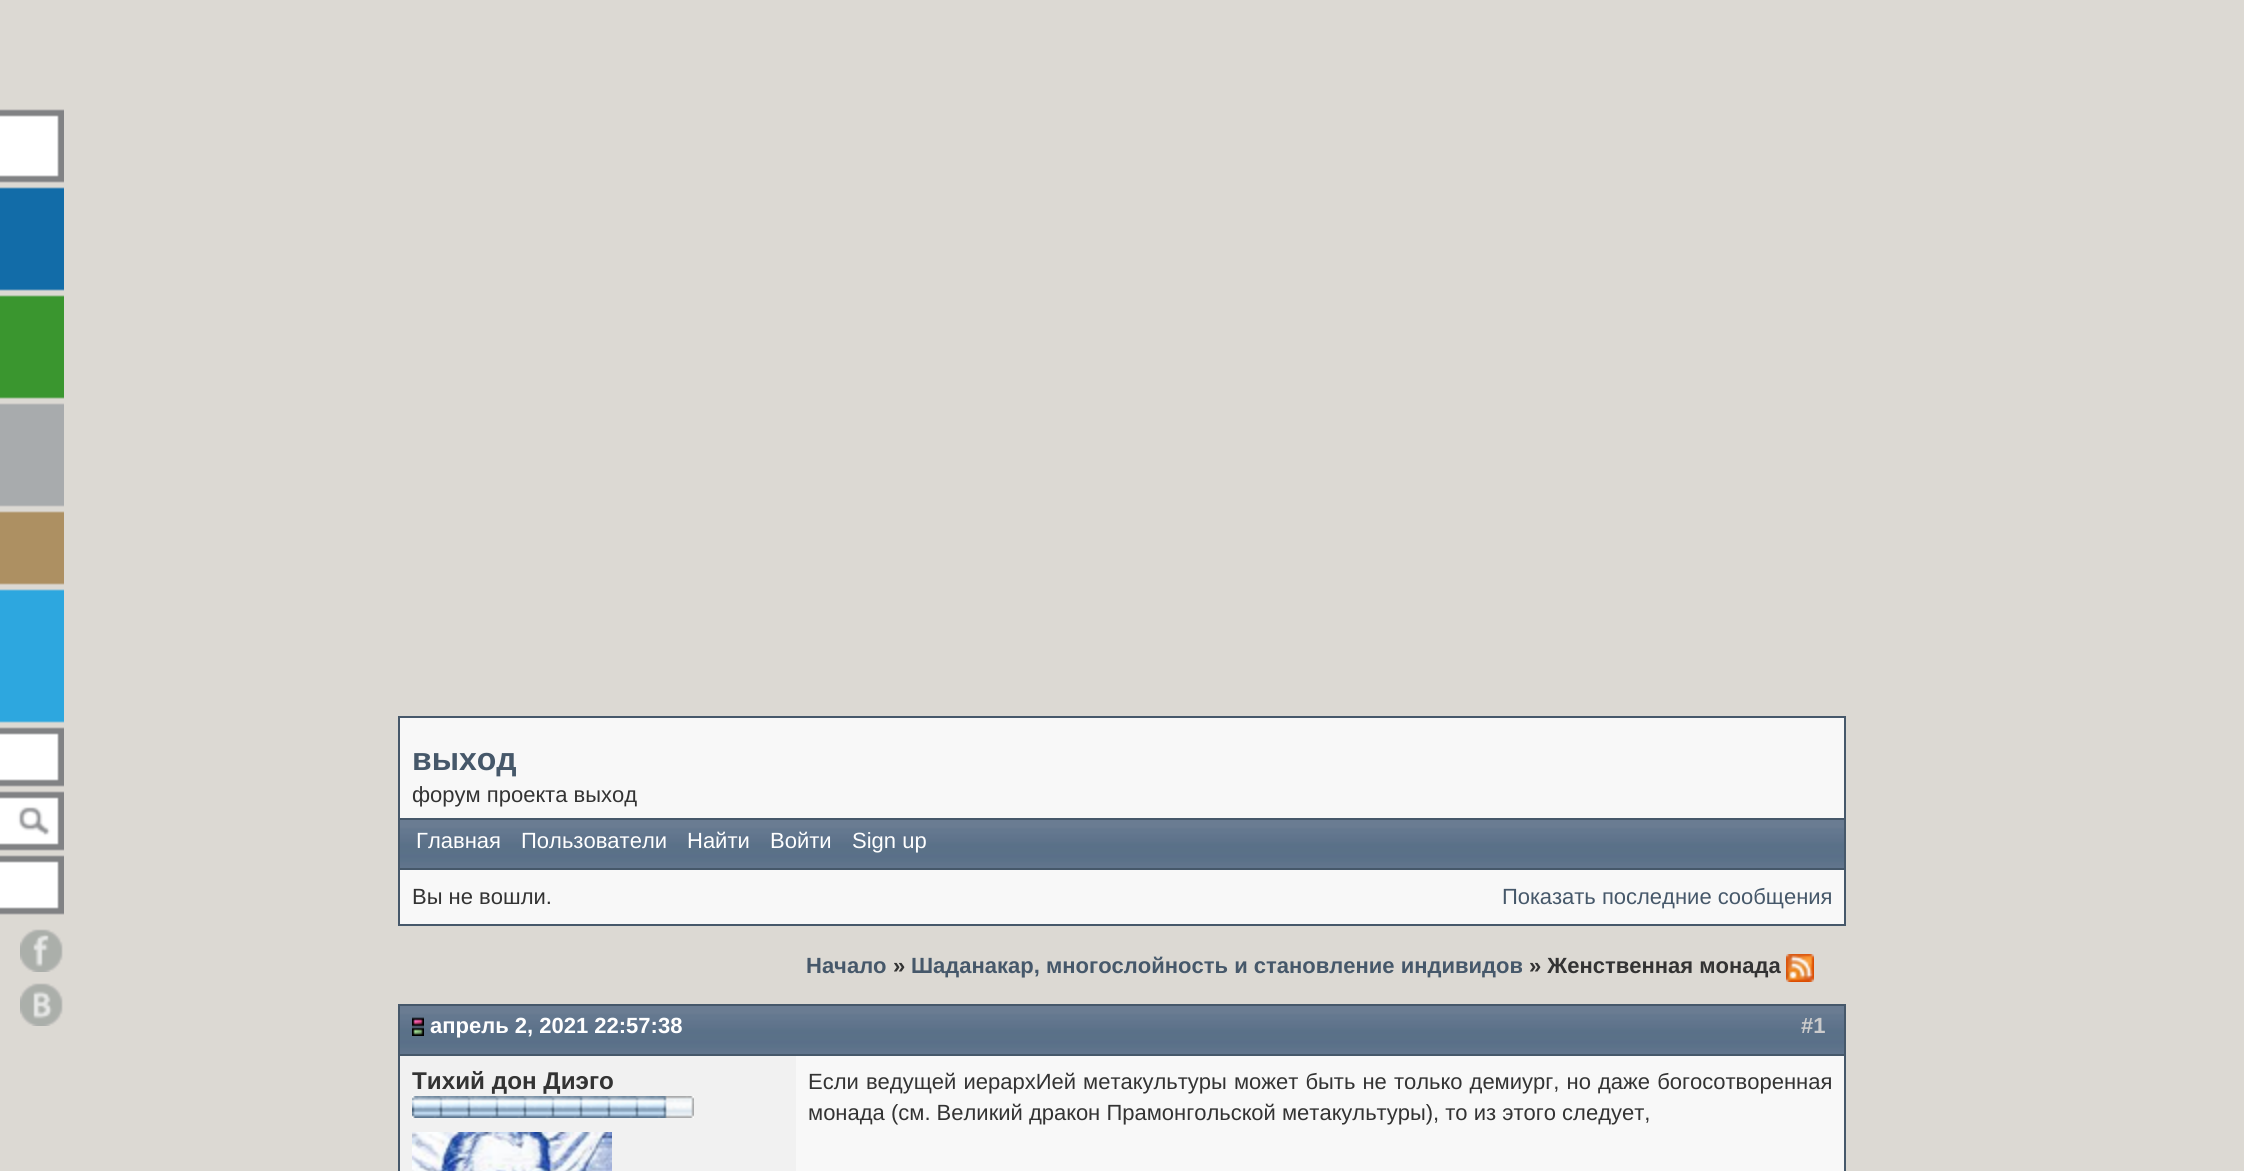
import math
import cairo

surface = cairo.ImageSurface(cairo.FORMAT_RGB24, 2244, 1171)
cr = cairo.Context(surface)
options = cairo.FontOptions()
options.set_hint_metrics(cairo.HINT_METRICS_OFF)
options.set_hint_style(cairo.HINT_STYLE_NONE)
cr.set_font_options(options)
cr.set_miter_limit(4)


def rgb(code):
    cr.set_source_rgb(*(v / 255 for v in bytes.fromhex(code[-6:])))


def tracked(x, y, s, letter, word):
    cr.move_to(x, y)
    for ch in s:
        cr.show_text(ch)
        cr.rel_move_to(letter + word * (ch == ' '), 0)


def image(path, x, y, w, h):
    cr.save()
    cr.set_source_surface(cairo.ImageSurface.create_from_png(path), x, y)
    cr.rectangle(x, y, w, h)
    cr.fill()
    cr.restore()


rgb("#dcd9d3")
cr.paint()
image("img/1.png", 0, 109, 64, 806)
rgb("#f8f8f8")
cr.rectangle(399, 717, 1446, 208)
cr.fill_preserve()
rgb("#46586a")
cr.stroke()
image("img/2.png", 400, 820, 1444, 48)
cr.rectangle(400, 818, 1444, 2)
cr.fill()
cr.rectangle(400, 868, 1444, 2)
cr.fill()
image("img/3.png", 1786, 954, 28, 28)
rgb("#f8f8f8")
cr.rectangle(796, 1056, 1048, 115)
cr.fill()
image("img/2.png", 400, 1006, 1444, 48)
for x, y, w, h, color in [
    (398, 1004, 1448, 2, "#46586a"),
    (1844, 1004, 2, 50, "#46586a"),
    (398, 1004, 2, 50, "#46586a"),
]:
    rgb(color)
    cr.rectangle(x, y, w, h)
    cr.fill()
image("img/4.png", 412, 1017, 12, 19)
cr.rectangle(399, 1055, 1446, 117)
cr.stroke()
rgb("#f1f1f1")
cr.rectangle(400, 1056, 396, 115)
cr.fill()
image("img/5.png", 412, 1096, 282, 22)
image("img/6.png", 412, 1132, 200, 39)
image("img/7.png", 20, 929, 43, 43)
image("img/8.png", 20, 983, 43, 43)
cr.select_font_face("Liberation Sans", cairo.FONT_SLANT_NORMAL, cairo.FONT_WEIGHT_BOLD)
cr.set_font_size(32)
rgb("#46586a")
cr.move_to(412, 770)
cr.show_text("выход")
cr.select_font_face("Liberation Sans")
cr.set_font_size(22)
rgb("#333333")
cr.move_to(412, 802)
cr.show_text("форум проекта выход")
rgb("#ffffff")
for x, y, s in [
    (416, 848, "Главная"),
    (521, 848, "Пользователи"),
    (687, 848, "Найти"),
    (770, 848, "Войти"),
    (852, 848, "Sign up"),
]:
    cr.move_to(x, y)
    cr.show_text(s)
rgb("#333333")
cr.move_to(412, 904)
cr.show_text("Вы не вошли.")
rgb("#46586a")
cr.move_to(1502, 904)
cr.show_text("Показать последние сообщения")
cr.select_font_face("Liberation Sans", cairo.FONT_SLANT_NORMAL, cairo.FONT_WEIGHT_BOLD)
cr.move_to(806, 973)
cr.show_text("Начало")
rgb("#333333")
cr.move_to(893, 973)
cr.show_text("»")
rgb("#46586a")
cr.move_to(911, 973)
cr.show_text("Шаданакар, многослойность и становление индивидов")
rgb("#333333")
cr.move_to(1529, 973)
cr.show_text("» Женственная монада")
rgb("#ffffff")
cr.move_to(430, 1033)
cr.show_text("апрель 2, 2021 22:57:38")
rgb("#cccccc")
cr.move_to(1801, 1033)
cr.show_text("#1")
cr.set_font_size(24.25)
rgb("#333333")
cr.move_to(412, 1089)
cr.show_text("Тихий дон Диэго")
cr.select_font_face("Liberation Sans")
cr.set_font_size(22)
tracked(808, 1089, "Если ведущей иерархИей метакультуры может быть не только демиург, но даже богосотворенная", 0, 1)
cr.move_to(808, 1120)
cr.show_text("монада (см. Великий дракон Прамонгольской метакультуры), то из этого следует,")
surface.write_to_png("page.png")
